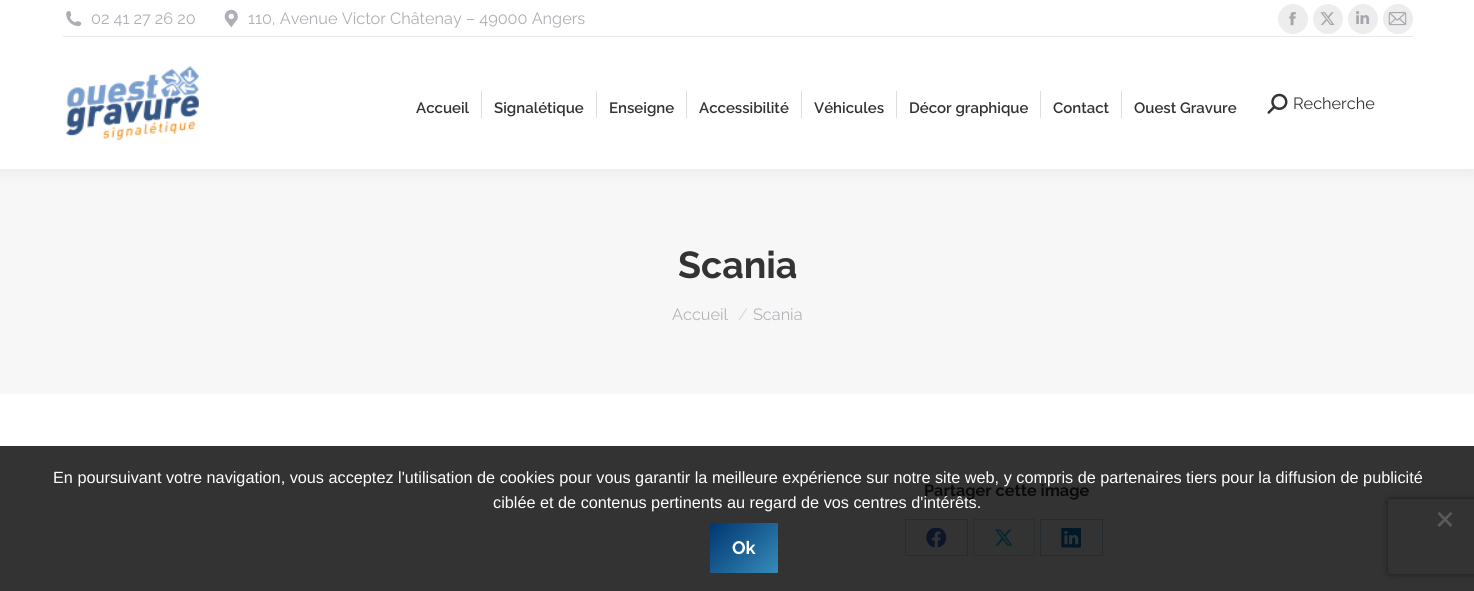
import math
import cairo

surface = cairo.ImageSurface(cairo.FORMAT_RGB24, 1474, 591)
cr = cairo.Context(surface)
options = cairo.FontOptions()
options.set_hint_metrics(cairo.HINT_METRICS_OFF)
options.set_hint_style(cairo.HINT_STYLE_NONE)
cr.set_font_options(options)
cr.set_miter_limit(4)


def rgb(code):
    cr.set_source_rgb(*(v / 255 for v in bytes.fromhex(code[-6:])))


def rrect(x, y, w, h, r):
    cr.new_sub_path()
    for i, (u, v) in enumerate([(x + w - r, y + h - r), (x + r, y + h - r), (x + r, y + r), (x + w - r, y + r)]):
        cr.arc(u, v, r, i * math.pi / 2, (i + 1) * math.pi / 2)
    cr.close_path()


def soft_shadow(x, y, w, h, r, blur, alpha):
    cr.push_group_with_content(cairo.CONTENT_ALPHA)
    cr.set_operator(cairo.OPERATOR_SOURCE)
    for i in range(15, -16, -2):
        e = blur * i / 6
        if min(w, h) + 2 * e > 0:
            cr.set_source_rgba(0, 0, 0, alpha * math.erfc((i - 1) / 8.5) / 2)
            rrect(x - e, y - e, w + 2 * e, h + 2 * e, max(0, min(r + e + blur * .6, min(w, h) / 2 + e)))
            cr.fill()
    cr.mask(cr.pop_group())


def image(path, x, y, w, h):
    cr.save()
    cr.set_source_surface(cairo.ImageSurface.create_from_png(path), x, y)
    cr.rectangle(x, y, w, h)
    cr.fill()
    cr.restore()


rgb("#ffffff")
cr.paint()
rgb("#333333")
cr.rectangle(0, 446, 1474, 145)
cr.fill()
rgb("#f7f7f7")
cr.rectangle(0, 169, 1474, 225)
cr.fill()
rgb("#000000")
soft_shadow(-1, -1, 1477, 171, 0, 9.5, 0.07)
rgb("#ffffff")
cr.rectangle(0, 0, 1474, 169)
cr.fill()
image("img/1.png", 66, 11, 16, 16)
image("img/2.png", 224, 9, 14, 19)
rgb("#ededee")
cr.arc(1293, 19, 15, 0, 2 * math.pi)
cr.fill()
image("img/3.png", 1289, 12, 7, 14)
cr.arc(1328, 19, 15, 0, 2 * math.pi)
cr.fill()
image("img/4.png", 1320, 12, 15, 13)
cr.arc(1363, 19, 15, 0, 2 * math.pi)
cr.fill()
image("img/5.png", 1356, 11, 14, 13)
cr.arc(1398, 19, 15, 0, 2 * math.pi)
cr.fill()
image("img/6.png", 1388, 12, 19, 14)
rgb("#e7e7e7")
cr.rectangle(63, 36, 1350, 1)
cr.fill()
image("img/7.png", 66, 66, 133, 74)
for x, y, w, h, color in [
    (481, 91, 1, 27, "#dedede"),
    (596, 91, 1, 27, "#dedede"),
    (686, 91, 1, 27, "#dedede"),
    (801, 91, 1, 27, "#dedede"),
    (896, 91, 1, 27, "#dedede"),
    (1040, 91, 1, 27, "#dedede"),
    (1121, 91, 1, 27, "#dedede"),
]:
    rgb(color)
    cr.rectangle(x, y, w, h)
    cr.fill()
image("img/8.png", 1267, 93, 21, 21)
cr.rectangle(905.5, 519.5, 62, 36)
rgb("#282a30")
cr.set_line_width(1)
cr.stroke()
image("img/9.png", 926, 528, 20, 20)
cr.rectangle(973.5, 519.5, 61, 36)
rgb("#262f32")
cr.stroke()
image("img/10.png", 994, 529, 19, 17)
cr.rectangle(1040.5, 519.5, 62, 36)
rgb("#242b30")
cr.stroke()
image("img/11.png", 1061, 528, 20, 20)
cr.save()
cr.set_fill_rule(cairo.FILL_RULE_EVEN_ODD)
cr.new_path()
cr.move_to(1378, 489)
cr.line_to(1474, 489)
cr.line_to(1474, 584)
cr.line_to(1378, 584)
cr.close_path()
cr.move_to(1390.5, 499)
cr.line_to(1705.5, 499)
cr.curve_to(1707, 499, 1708, 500, 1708, 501.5)
cr.line_to(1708, 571.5)
cr.curve_to(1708, 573, 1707, 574, 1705.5, 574)
cr.line_to(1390.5, 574)
cr.curve_to(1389, 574, 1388, 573, 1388, 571.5)
cr.line_to(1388, 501.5)
cr.curve_to(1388, 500, 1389, 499, 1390.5, 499)
cr.close_path()
cr.clip()
rgb("#1a1a1a")
soft_shadow(1388, 499, 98, 75, 2.5, 3, 1)
cr.restore()
rgb("#5a5a5a")
cr.new_path()
cr.move_to(1450.5, 512)
cr.line_to(1452.5, 513.5)
cr.line_to(1439.5, 527)
cr.line_to(1437.5, 525)
cr.close_path()
cr.fill()
cr.new_path()
cr.move_to(1437.5, 513.5)
cr.line_to(1439.5, 512)
cr.line_to(1452.5, 525)
cr.line_to(1450.5, 527)
cr.close_path()
cr.fill()
gradient = cairo.LinearGradient(714, 518, 773, 577)
gradient.add_color_stop_rgba(0, 0, 0.208, 0.443, 1)
gradient.add_color_stop_rgba(1, 0.208, 0.545, 0.722, 1)
cr.set_source(gradient)
rrect(710, 523, 68, 50, 1)
cr.fill()
cr.select_font_face("Raleway")
cr.set_font_size(16.25)
rgb("#aeafb5")
cr.move_to(91, 24)
cr.show_text("02 41 27 26 20")
cr.move_to(248, 24)
cr.show_text("110, Avenue Victor Châtenay – 49000 Angers")
cr.select_font_face("Raleway SemiBold")
cr.set_font_size(15)
rgb("#333333")
for x, y, s in [
    (416, 113, "Accueil"),
    (494, 113, "Signalétique"),
    (609, 113, "Enseigne"),
    (699, 113, "Accessibilité"),
    (814, 113, "Véhicules"),
    (909, 113, "Décor graphique"),
    (1053, 113, "Contact"),
    (1134, 113, "Ouest Gravure"),
]:
    cr.move_to(x, y)
    cr.show_text(s)
cr.select_font_face("Raleway")
cr.set_font_size(16.25)
cr.move_to(1293, 109)
cr.show_text("Recherche")
cr.select_font_face("Raleway", cairo.FONT_SLANT_NORMAL, cairo.FONT_WEIGHT_BOLD)
cr.set_font_size(37.5)
cr.move_to(678, 278)
cr.show_text("Scania")
cr.select_font_face("Raleway")
cr.set_font_size(16.25)
rgb("#b4b5bb")
cr.move_to(672, 320)
cr.show_text("Accueil")
rgb("#d6d6d9")
cr.move_to(738, 320)
cr.show_text("/")
rgb("#b4b5bb")
cr.move_to(753, 320)
cr.show_text("Scania")
cr.select_font_face("Raleway", cairo.FONT_SLANT_NORMAL, cairo.FONT_WEIGHT_BOLD)
rgb("#0a0a0a")
cr.move_to(924, 496)
cr.show_text("Partager cette image")
cr.select_font_face("Liberation Sans")
rgb("#ffffff")
cr.move_to(53, 483)
cr.show_text("En poursuivant votre navigation, vous acceptez l'utilisation de cookies pour vous garantir la meilleure expérience sur notre site web, y compris de partenaires tiers pour la diffusion de publicité")
cr.move_to(493, 508)
cr.show_text("ciblée et de contenus pertinents au regard de vos centres d'intérêts.")
cr.select_font_face("Raleway", cairo.FONT_SLANT_NORMAL, cairo.FONT_WEIGHT_BOLD)
cr.set_font_size(18)
cr.move_to(732, 554)
cr.show_text("Ok")
surface.write_to_png("page.png")
